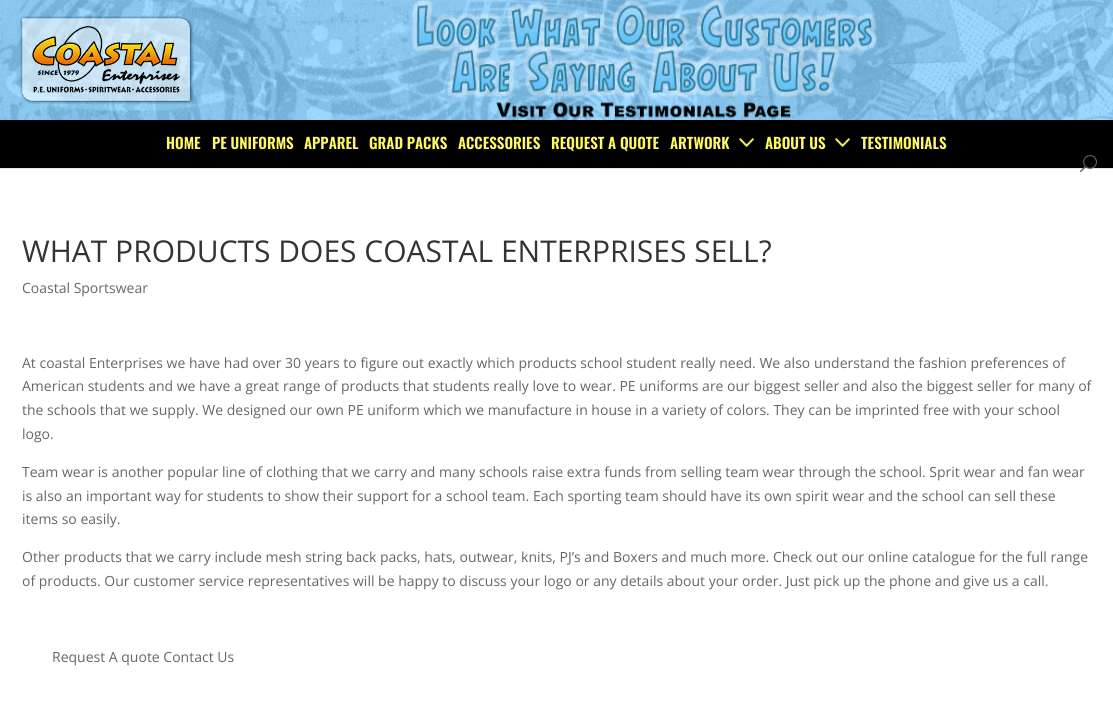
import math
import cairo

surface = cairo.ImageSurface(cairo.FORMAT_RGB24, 1113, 716)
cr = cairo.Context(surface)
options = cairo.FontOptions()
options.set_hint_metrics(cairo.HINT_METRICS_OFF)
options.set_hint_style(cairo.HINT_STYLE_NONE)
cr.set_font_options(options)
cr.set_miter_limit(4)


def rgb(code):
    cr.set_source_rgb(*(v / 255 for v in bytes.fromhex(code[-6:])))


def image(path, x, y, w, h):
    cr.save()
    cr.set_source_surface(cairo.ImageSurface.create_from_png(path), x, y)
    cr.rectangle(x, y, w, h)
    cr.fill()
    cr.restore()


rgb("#ffffff")
cr.paint()
rgb("#e6e6e6")
cr.rectangle(0, 168, 1113, 1)
cr.fill()
image("img/1.png", 0, 0, 1113, 120)
image("img/2.png", 20, 16, 174, 89)
rgb("#000000")
cr.rectangle(0, 120, 1113, 48)
cr.fill()
image("img/3.png", 739, 138, 15, 9)
image("img/3.png", 835, 138, 15, 9)
image("img/4.png", 1080, 155, 17, 18)
cr.select_font_face("Oswald SemiBold")
cr.set_font_size(15)
rgb("#fff763")
for x, y, s in [
    (166, 149, "HOME"),
    (212, 149, "PE UNIFORMS"),
    (304, 149, "APPAREL"),
    (369, 149, "GRAD PACKS"),
    (458, 149, "ACCESSORIES"),
    (551, 149, "REQUEST A QUOTE"),
    (670, 149, "ARTWORK"),
    (765, 149, "ABOUT US"),
    (861, 149, "TESTIMONIALS"),
]:
    cr.move_to(x, y)
    cr.show_text(s)
cr.select_font_face("Open Sans")
cr.set_font_size(30)
rgb("#333333")
cr.move_to(22, 262)
cr.show_text("WHAT PRODUCTS DOES COASTAL ENTERPRISES SELL?")
cr.set_font_size(14)
rgb("#666666")
for x, y, s in [
    (22, 293, "Coastal Sportswear"),
    (22, 368, "At coastal Enterprises we have had over 30 years to figure out exactly which products school student really need. We also understand the fashion preferences of"),
    (22, 391, "American students and we have a great range of products that students really love to wear. PE uniforms are our biggest seller and also the biggest seller for many of"),
    (22, 415, "the schools that we supply. We designed our own PE uniform which we manufacture in house in a variety of colors. They can be imprinted free with your school"),
    (22, 439, "logo."),
    (22, 477, "Team wear is another popular line of clothing that we carry and many schools raise extra funds from selling team wear through the school. Sprit wear and fan wear"),
    (22, 501, "is also an important way for students to show their support for a school team. Each sporting team should have its own spirit wear and the school can sell these"),
    (22, 524, "items so easily."),
    (22, 562, "Other products that we carry include mesh string back packs, hats, outwear, knits, PJ’s and Boxers and much more. Check out our online catalogue for the full range"),
    (22, 586, "of products. Our customer service representatives will be happy to discuss your logo or any details about your order. Just pick up the phone and give us a call."),
    (52, 662, "Request A quote Contact Us"),
]:
    cr.move_to(x, y)
    cr.show_text(s)
surface.write_to_png("page.png")
